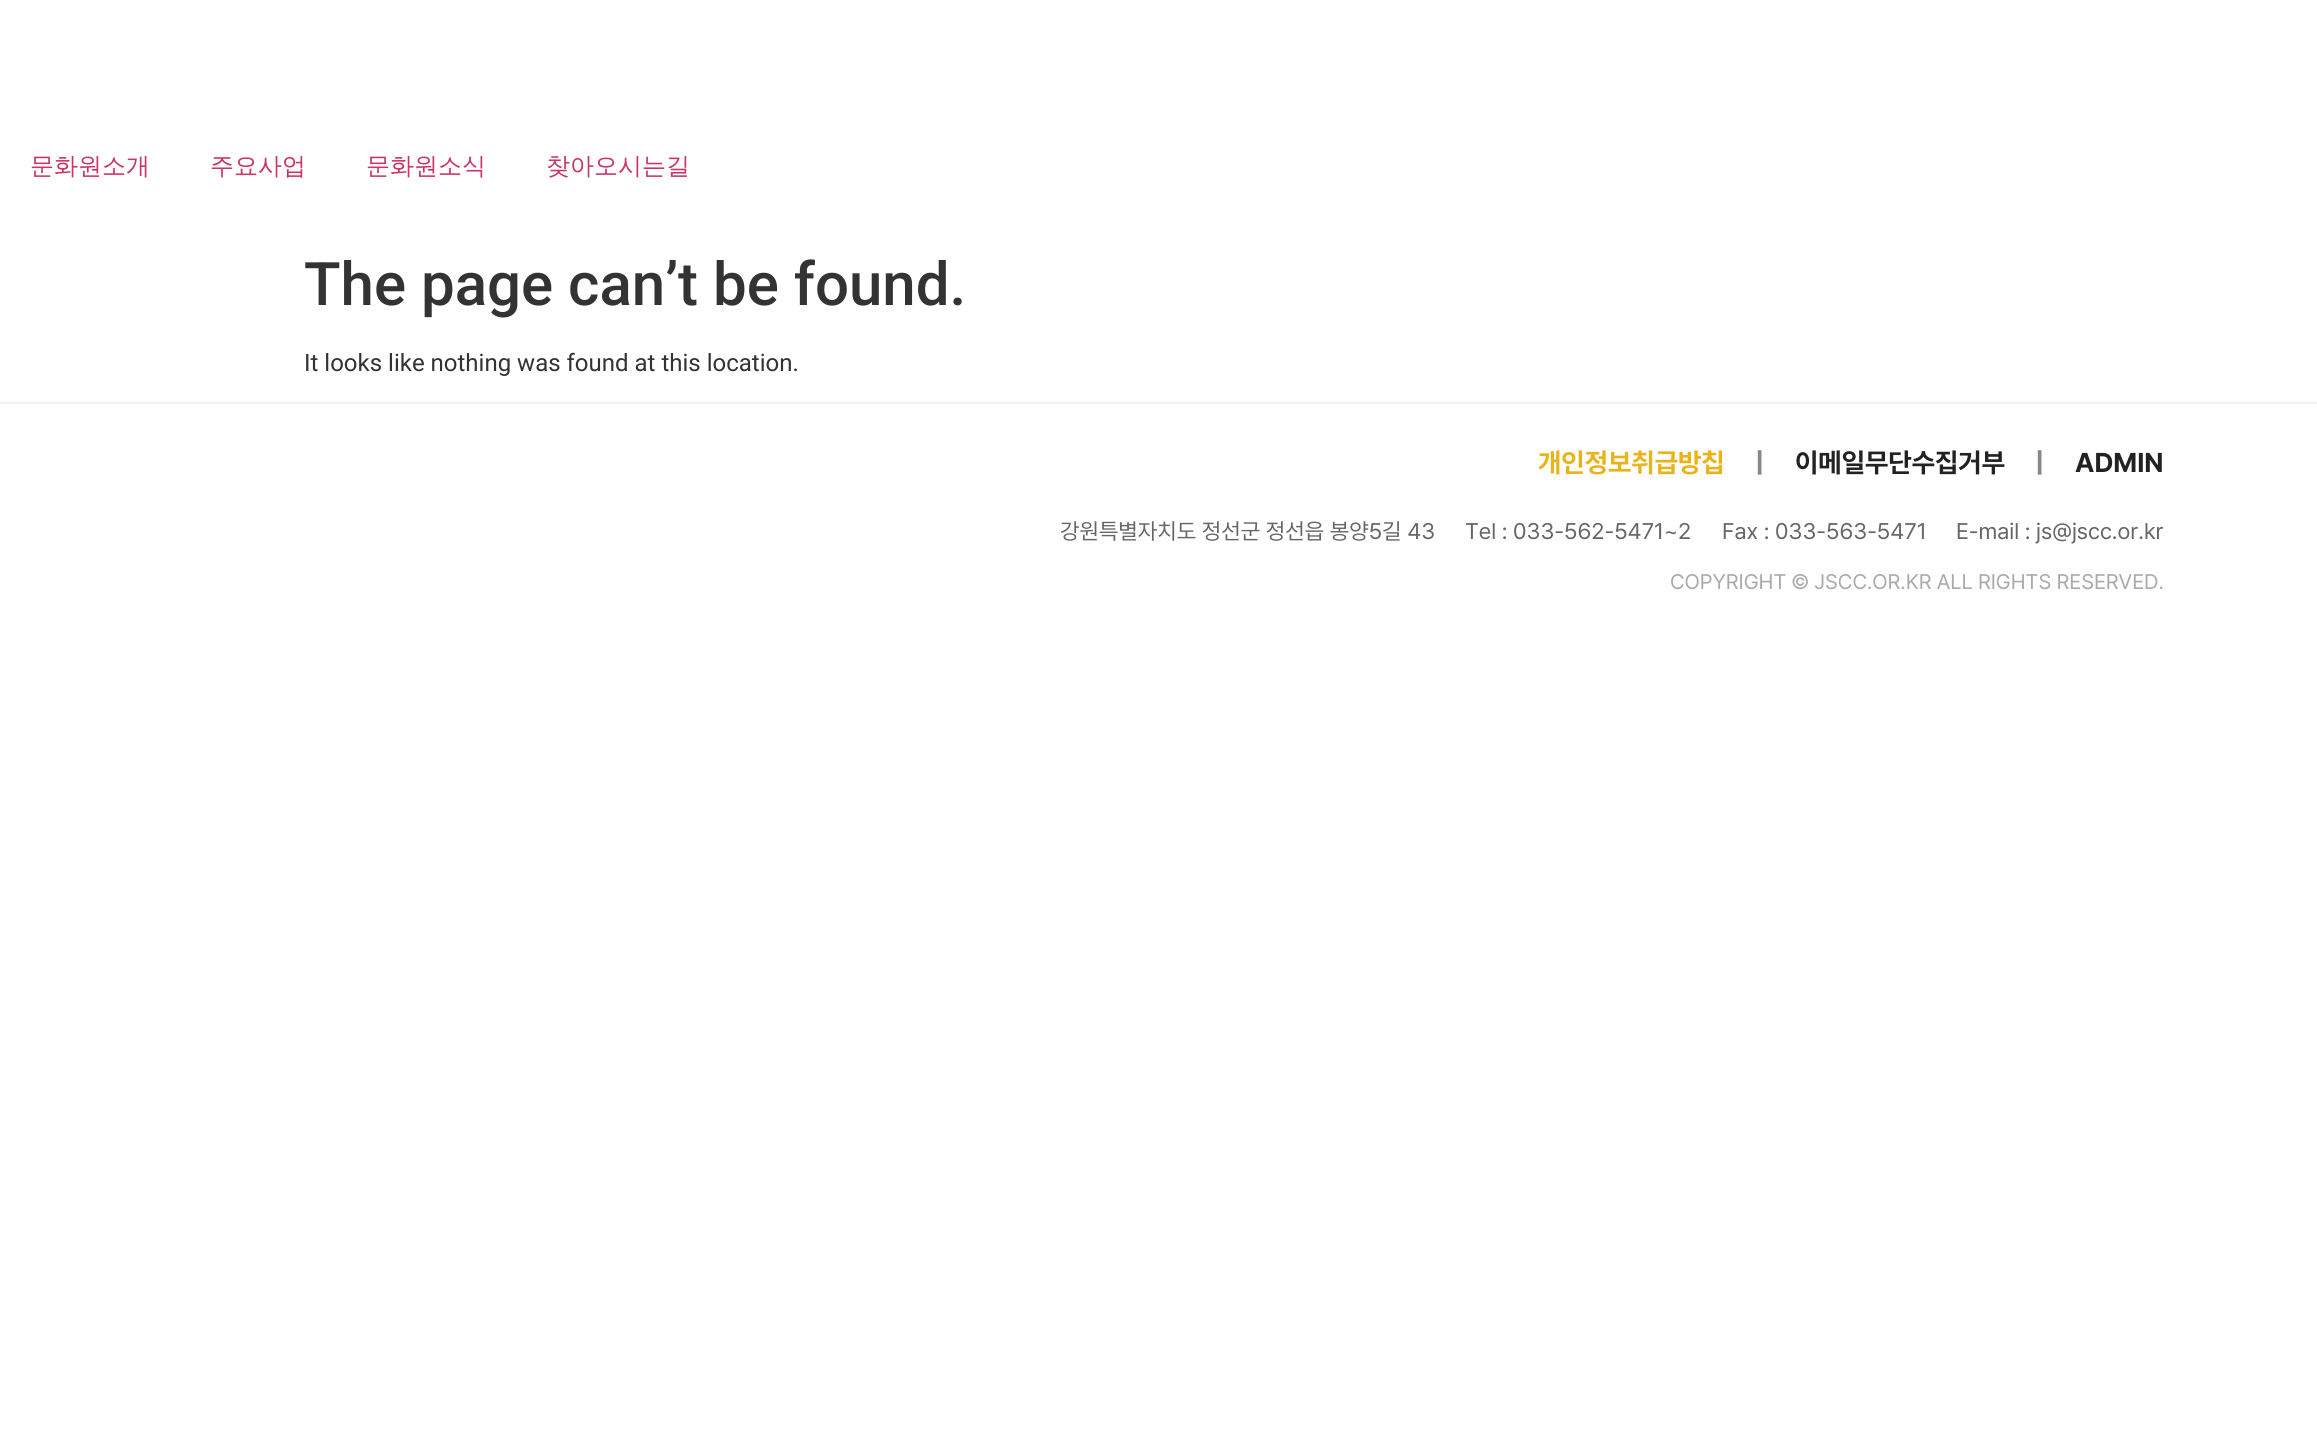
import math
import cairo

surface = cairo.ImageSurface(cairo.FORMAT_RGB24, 2317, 1441)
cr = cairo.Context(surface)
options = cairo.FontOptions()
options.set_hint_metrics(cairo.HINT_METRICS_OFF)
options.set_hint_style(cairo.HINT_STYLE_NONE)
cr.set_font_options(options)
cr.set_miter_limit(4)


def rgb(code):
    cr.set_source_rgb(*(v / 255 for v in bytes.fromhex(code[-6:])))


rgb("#ffffff")
cr.paint()
rgb("#f1f1f1")
cr.rectangle(0, 402, 2317, 2)
cr.fill()
cr.select_font_face("WenQuanYi Zen Hei Medium")
cr.set_font_size(24)
rgb("#cc3366")
for x, y, s in [
    (30, 174, "문화원소개"),
    (210, 174, "주요사업"),
    (366, 174, "문화원소식"),
    (546, 174, "찾아오시는길"),
]:
    cr.move_to(x, y)
    cr.show_text(s)
cr.select_font_face("Roboto Medium")
cr.set_font_size(60)
rgb("#333333")
cr.move_to(304, 305)
cr.show_text("The page can’t be found.")
cr.select_font_face("Roboto")
cr.set_font_size(24)
cr.move_to(304, 371)
cr.show_text("It looks like nothing was found at this location.")
cr.select_font_face("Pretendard", cairo.FONT_SLANT_NORMAL, cairo.FONT_WEIGHT_BOLD)
cr.set_font_size(27)
rgb("#eab31a")
cr.move_to(1538, 472)
cr.show_text("개인정보취급방칩")
rgb("#888888")
cr.move_to(1747, 472)
cr.show_text("｜")
rgb("#222222")
cr.move_to(1795, 472)
cr.show_text("이메일무단수집거부")
rgb("#888888")
cr.move_to(2027, 472)
cr.show_text("｜")
rgb("#222222")
cr.move_to(2075, 472)
cr.show_text("ADMIN")
cr.select_font_face("Pretendard")
cr.set_font_size(22.5)
rgb("#666666")
for x, y, s in [
    (1060, 539, "강원특별자치도 정선군 정선읍 봉양5길 43"),
    (1465, 539, "Tel : 033-562-5471~2"),
    (1722, 539, "Fax : 033-563-5471"),
    (1956, 539, "E-mail : js@jscc.or.kr"),
]:
    cr.move_to(x, y)
    cr.show_text(s)
cr.set_font_size(21)
rgb("#aaaaaa")
cr.move_to(1670, 589)
cr.show_text("COPYRIGHT © JSCC.OR.KR ALL RIGHTS RESERVED.")
surface.write_to_png("page.png")
